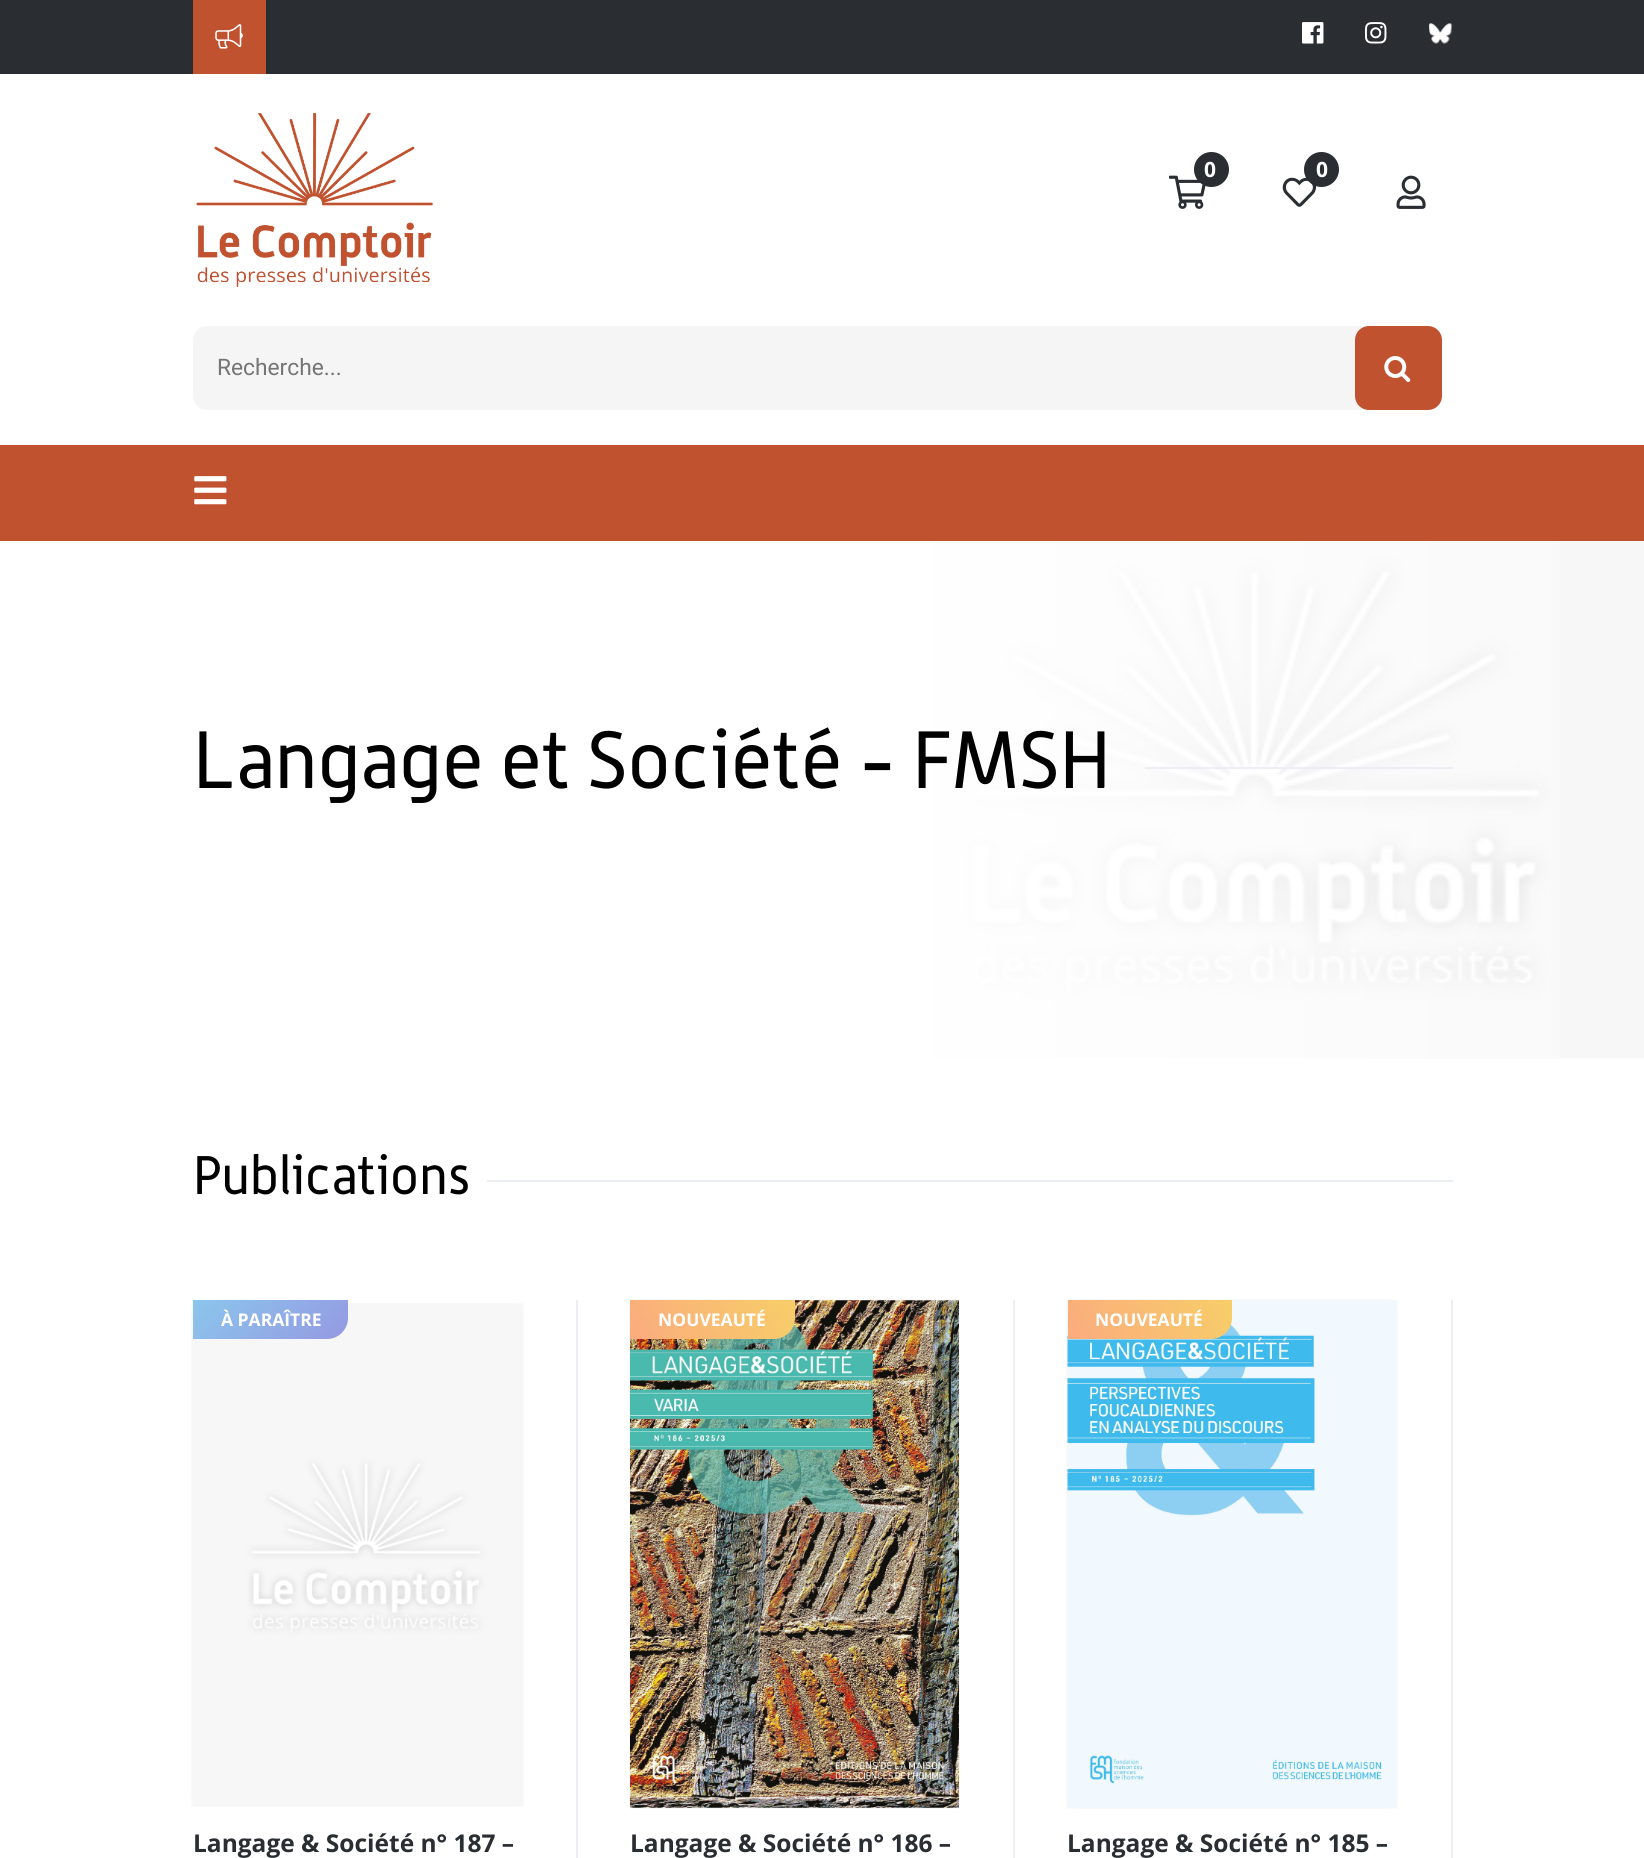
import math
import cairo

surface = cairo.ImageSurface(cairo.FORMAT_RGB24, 1644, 1858)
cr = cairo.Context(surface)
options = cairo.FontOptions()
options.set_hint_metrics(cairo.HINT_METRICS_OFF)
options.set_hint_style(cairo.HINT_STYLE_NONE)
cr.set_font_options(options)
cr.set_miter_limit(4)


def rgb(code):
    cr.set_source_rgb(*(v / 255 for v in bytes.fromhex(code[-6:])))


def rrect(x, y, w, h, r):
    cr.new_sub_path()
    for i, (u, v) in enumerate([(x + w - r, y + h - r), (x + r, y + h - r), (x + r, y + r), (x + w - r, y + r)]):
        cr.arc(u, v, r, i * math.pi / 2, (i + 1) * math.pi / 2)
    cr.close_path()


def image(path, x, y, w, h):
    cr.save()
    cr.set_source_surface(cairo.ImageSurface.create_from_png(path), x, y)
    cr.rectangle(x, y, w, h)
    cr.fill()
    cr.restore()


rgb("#ffffff")
cr.paint()
rgb("#2a2e33")
cr.rectangle(0, 0, 1644, 74)
cr.fill()
rgb("#c0522f")
cr.rectangle(193, 0, 73, 74)
cr.fill()
image("img/1.png", 215, 24, 28, 25)
image("img/2.png", 1302, 22, 22, 22)
image("img/3.png", 1365, 22, 22, 22)
image("img/4.png", 1429, 23, 23, 21)
image("img/5.png", 196, 113, 237, 174)
image("img/6.png", 1169, 175, 37, 34)
rgb("#2a2e33")
cr.arc(1211.5, 169.5, 17.5, 0, 2 * math.pi)
cr.fill()
image("img/7.png", 1282, 177, 34, 30)
cr.arc(1321.5, 169.5, 17.5, 0, 2 * math.pi)
cr.fill()
image("img/8.png", 1396, 175, 30, 34)
rgb("#f5f5f5")
cr.new_path()
cr.move_to(207, 326)
cr.line_to(1365, 326)
cr.line_to(1365, 410)
cr.line_to(207, 410)
cr.curve_to(199.5, 410, 193, 403.5, 193, 396)
cr.line_to(193, 340)
cr.curve_to(193, 332.5, 199.5, 326, 207, 326)
cr.close_path()
cr.fill()
rgb("#c0522f")
rrect(1356, 327, 85, 82, 13)
cr.fill_preserve()
cr.stroke()
image("img/9.png", 1384, 356, 27, 26)
cr.rectangle(0, 445, 1644, 96)
cr.fill()
image("img/10.png", 194, 476, 33, 29)
image("img/11.png", 877, 541, 767, 518)
gradient = cairo.LinearGradient(740, 800, 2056, 800)
gradient.add_color_stop_rgba(0.1, 1, 1, 1, 1)
gradient.add_color_stop_rgba(0.85, 1, 1, 1, 0)
cr.set_source(gradient)
cr.rectangle(877, 541, 683, 518)
cr.fill()
for x, y, w, h, color in [
    (1145, 767, 308, 2, "#ebeef3"),
    (487, 1180, 966, 2, "#ebeef3"),
    (576, 1300, 2, 558, "#ebeef3"),
]:
    rgb(color)
    cr.rectangle(x, y, w, h)
    cr.fill()
image("img/12.png", 191, 1303, 333, 504)
gradient = cairo.LinearGradient(222, 1271, 319, 1368)
gradient.add_color_stop_rgba(0, 0.545, 0.776, 0.925, 1)
gradient.add_color_stop_rgba(1, 0.584, 0.6, 0.886, 1)
cr.set_source(gradient)
cr.new_path()
cr.move_to(193, 1300)
cr.line_to(348, 1300)
cr.line_to(348, 1318)
cr.curve_to(348, 1329.5, 338.5, 1339, 327, 1339)
cr.line_to(193, 1339)
cr.close_path()
cr.fill()
rgb("#ebeef3")
cr.rectangle(1013, 1300, 2, 558)
cr.fill()
image("img/13.png", 629, 1299, 331, 510)
gradient = cairo.LinearGradient(640, 1358, 784, 1281)
gradient.add_color_stop_rgba(0, 0.984, 0.671, 0.494, 1)
gradient.add_color_stop_rgba(1, 0.969, 0.808, 0.408, 1)
cr.set_source(gradient)
cr.new_path()
cr.move_to(630, 1300)
cr.line_to(795, 1300)
cr.line_to(795, 1318)
cr.curve_to(795, 1329.5, 785.5, 1339, 774, 1339)
cr.line_to(630, 1339)
cr.close_path()
cr.fill()
rgb("#ebeef3")
cr.rectangle(1451, 1300, 2, 558)
cr.fill()
image("img/14.png", 1066, 1299, 332, 510)
gradient = cairo.LinearGradient(1078, 1358, 1222, 1281)
gradient.add_color_stop_rgba(0, 0.984, 0.671, 0.494, 1)
gradient.add_color_stop_rgba(1, 0.969, 0.808, 0.408, 1)
cr.set_source(gradient)
cr.new_path()
cr.move_to(1068, 1300)
cr.line_to(1232, 1300)
cr.line_to(1232, 1318)
cr.curve_to(1232, 1329.5, 1222.5, 1339, 1211, 1339)
cr.line_to(1068, 1339)
cr.close_path()
cr.fill()
cr.select_font_face("Open Sans", cairo.FONT_SLANT_NORMAL, cairo.FONT_WEIGHT_BOLD)
cr.set_font_size(21)
rgb("#ffffff")
cr.move_to(1204, 177)
cr.show_text("0")
cr.move_to(1316, 177)
cr.show_text("0")
cr.select_font_face("Roboto")
cr.set_font_size(22.75)
rgb("#757575")
cr.move_to(217, 375)
cr.show_text("Recherche...")
cr.select_font_face("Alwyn")
cr.set_font_size(79.5)
rgb("#000000")
cr.move_to(193, 788)
cr.show_text("Langage et Société - FMSH")
cr.set_font_size(53.25)
cr.move_to(193, 1194)
cr.show_text("Publications")
cr.select_font_face("Open Sans", cairo.FONT_SLANT_NORMAL, cairo.FONT_WEIGHT_BOLD)
cr.set_font_size(17.5)
rgb("#ffffff")
cr.move_to(221, 1326)
cr.show_text("À PARAÎTRE")
cr.set_font_size(24.5)
rgb("#2a2e33")
cr.move_to(193, 1852)
cr.show_text("Langage & Société n° 187 –")
cr.set_font_size(17.5)
rgb("#ffffff")
cr.move_to(658, 1326)
cr.show_text("NOUVEAUTÉ")
cr.set_font_size(24.5)
rgb("#2a2e33")
cr.move_to(630, 1852)
cr.show_text("Langage & Société n° 186 –")
cr.set_font_size(17.5)
rgb("#ffffff")
cr.move_to(1095, 1326)
cr.show_text("NOUVEAUTÉ")
cr.set_font_size(24.5)
rgb("#2a2e33")
cr.move_to(1067, 1852)
cr.show_text("Langage & Société n° 185 –")
surface.write_to_png("page.png")
